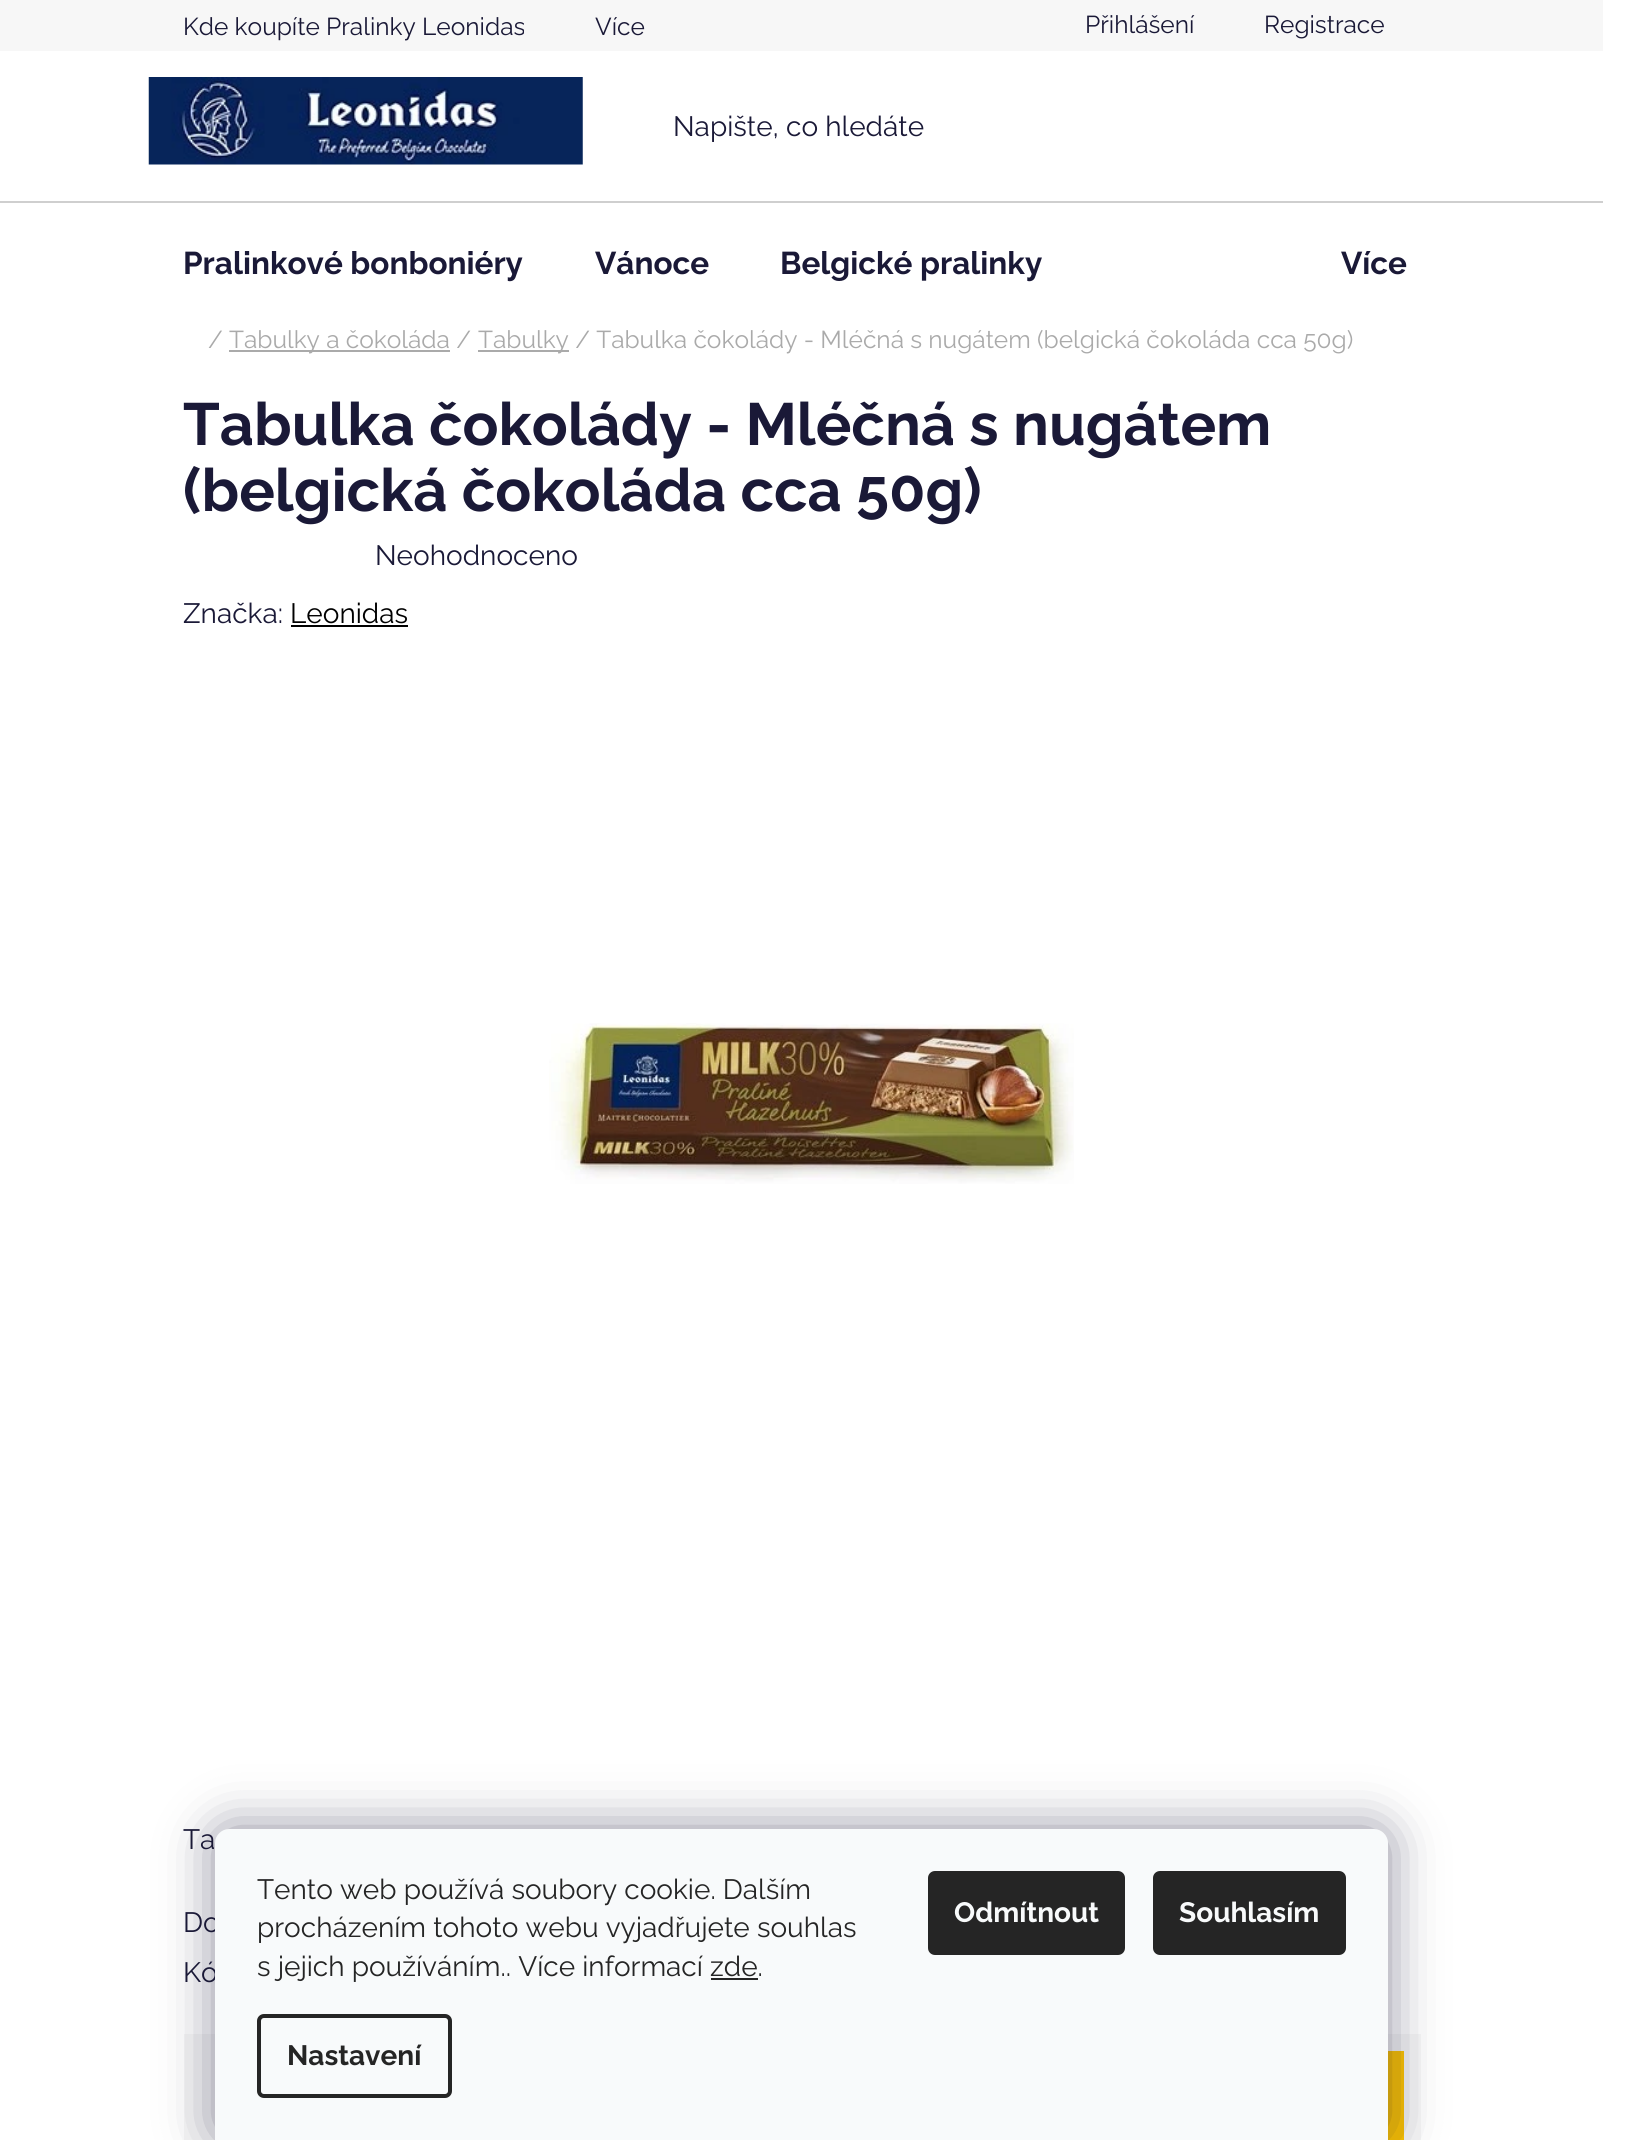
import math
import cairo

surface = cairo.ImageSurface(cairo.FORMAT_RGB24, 1628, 2140)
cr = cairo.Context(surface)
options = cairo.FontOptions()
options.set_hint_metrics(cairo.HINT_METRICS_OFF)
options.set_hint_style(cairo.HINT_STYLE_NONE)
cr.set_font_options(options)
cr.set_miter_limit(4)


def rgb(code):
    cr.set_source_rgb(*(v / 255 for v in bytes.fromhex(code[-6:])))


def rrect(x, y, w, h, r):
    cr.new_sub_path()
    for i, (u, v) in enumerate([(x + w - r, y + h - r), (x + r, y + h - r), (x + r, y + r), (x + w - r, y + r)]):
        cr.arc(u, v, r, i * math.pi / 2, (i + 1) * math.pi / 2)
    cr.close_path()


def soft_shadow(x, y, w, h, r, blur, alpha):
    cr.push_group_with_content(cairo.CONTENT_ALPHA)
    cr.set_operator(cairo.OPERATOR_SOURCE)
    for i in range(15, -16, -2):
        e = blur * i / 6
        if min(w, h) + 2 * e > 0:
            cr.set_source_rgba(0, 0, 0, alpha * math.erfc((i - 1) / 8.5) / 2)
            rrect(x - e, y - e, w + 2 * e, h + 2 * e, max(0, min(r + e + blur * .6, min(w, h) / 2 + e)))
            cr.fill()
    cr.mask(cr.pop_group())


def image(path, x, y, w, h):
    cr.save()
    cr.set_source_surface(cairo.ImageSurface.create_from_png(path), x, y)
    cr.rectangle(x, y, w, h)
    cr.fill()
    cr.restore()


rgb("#ffffff")
cr.paint()
rgb("#f7f7f7")
cr.rectangle(0, 0, 1603, 51)
cr.fill()
image("img/1.png", 148, 77, 435, 88)
for x, y, w, h, color in [
    (0, 201, 1603, 2, "#cfcfcf"),
    (229, 350, 221, 2, "#aaaaaa"),
    (478, 350, 91, 2, "#aaaaaa"),
    (291, 625, 117, 2, "#000000"),
]:
    rgb(color)
    cr.rectangle(x, y, w, h)
    cr.fill()
image("img/2.png", 549, 1023, 525, 161)
rgb("#f7f7f7")
cr.rectangle(184, 2034, 1237, 106)
cr.fill()
rgb("#ffc500")
cr.rectangle(1388, 2051, 16, 89)
cr.fill()
rgb("#1b1939")
soft_shadow(215, 1829, 1173, 311, 14, 26, 0.5)
cr.select_font_face("Raleway")
cr.set_font_size(24.5)
rgb("#1a1937")
for x, y, s in [
    (183, 35, "Kde koupíte Pralinky Leonidas"),
    (595, 35, "Více"),
    (1085, 33, "Přihlášení"),
    (1264, 33, "Registrace"),
]:
    cr.move_to(x, y)
    cr.show_text(s)
cr.set_font_size(28)
cr.move_to(673, 136)
cr.show_text("Napište, co hledáte")
cr.select_font_face("Raleway", cairo.FONT_SLANT_NORMAL, cairo.FONT_WEIGHT_BOLD)
cr.set_font_size(31.5)
for x, y, s in [
    (183, 274, "Pralinkové bonboniéry"),
    (595, 274, "Vánoce"),
    (780, 274, "Belgické pralinky"),
    (1341, 274, "Více"),
]:
    cr.move_to(x, y)
    cr.show_text(s)
cr.select_font_face("Raleway")
cr.set_font_size(24.5)
rgb("#aaaaaa")
for x, y, s in [
    (208, 348, "/"),
    (229, 348, "Tabulky a čokoláda /"),
    (478, 348, "Tabulky / Tabulka čokolády - Mléčná s nugátem (belgická čokoláda cca 50g)"),
]:
    cr.move_to(x, y)
    cr.show_text(s)
cr.select_font_face("Raleway", cairo.FONT_SLANT_NORMAL, cairo.FONT_WEIGHT_BOLD)
cr.set_font_size(59.5)
rgb("#1a1937")
cr.move_to(183, 445)
cr.show_text("Tabulka čokolády - Mléčná s nugátem")
cr.move_to(183, 511)
cr.show_text("(belgická čokoláda cca 50g)")
cr.select_font_face("Raleway")
cr.set_font_size(28)
cr.move_to(375, 565)
cr.show_text("Neohodnoceno")
cr.move_to(183, 623)
cr.show_text("Značka:")
rgb("#000000")
cr.move_to(290, 623)
cr.show_text("Leonidas")
rgb("#1a1937")
for x, y, s in [
    (183, 1849, "Ta"),
    (183, 1932, "Do"),
    (183, 1982, "Kó"),
]:
    cr.move_to(x, y)
    cr.show_text(s)
rgb("#f8fafb")
cr.new_path()
cr.move_to(229, 1829)
cr.line_to(1374, 1829)
cr.curve_to(1381.5, 1829, 1388, 1835.5, 1388, 1843)
cr.line_to(1388, 2140)
cr.line_to(215, 2140)
cr.line_to(215, 1843)
cr.curve_to(215, 1835.5, 221.5, 1829, 229, 1829)
cr.close_path()
cr.fill()
rgb("#252525")
for x, y, s in [
    (257, 1899, "Tento web používá soubory cookie. Dalším"),
    (257, 1937, "procházením tohoto webu vyjadřujete souhlas"),
    (257, 1976, "s jejich používáním.. Více informací zde."),
]:
    cr.move_to(x, y)
    cr.show_text(s)
cr.rectangle(711, 1978, 47, 2)
cr.fill()
rrect(259, 2016, 191, 80, 5)
cr.set_line_width(4)
cr.stroke()
cr.select_font_face("Raleway", cairo.FONT_SLANT_NORMAL, cairo.FONT_WEIGHT_BOLD)
cr.move_to(287, 2065)
cr.show_text("Nastavení")
rrect(928, 1871, 197, 84, 7)
cr.fill()
rgb("#f8fafb")
cr.move_to(954, 1922)
cr.show_text("Odmítnout")
rgb("#252525")
rrect(1153, 1871, 193, 84, 7)
cr.fill()
rgb("#f8fafb")
cr.move_to(1179, 1922)
cr.show_text("Souhlasím")
surface.write_to_png("page.png")
